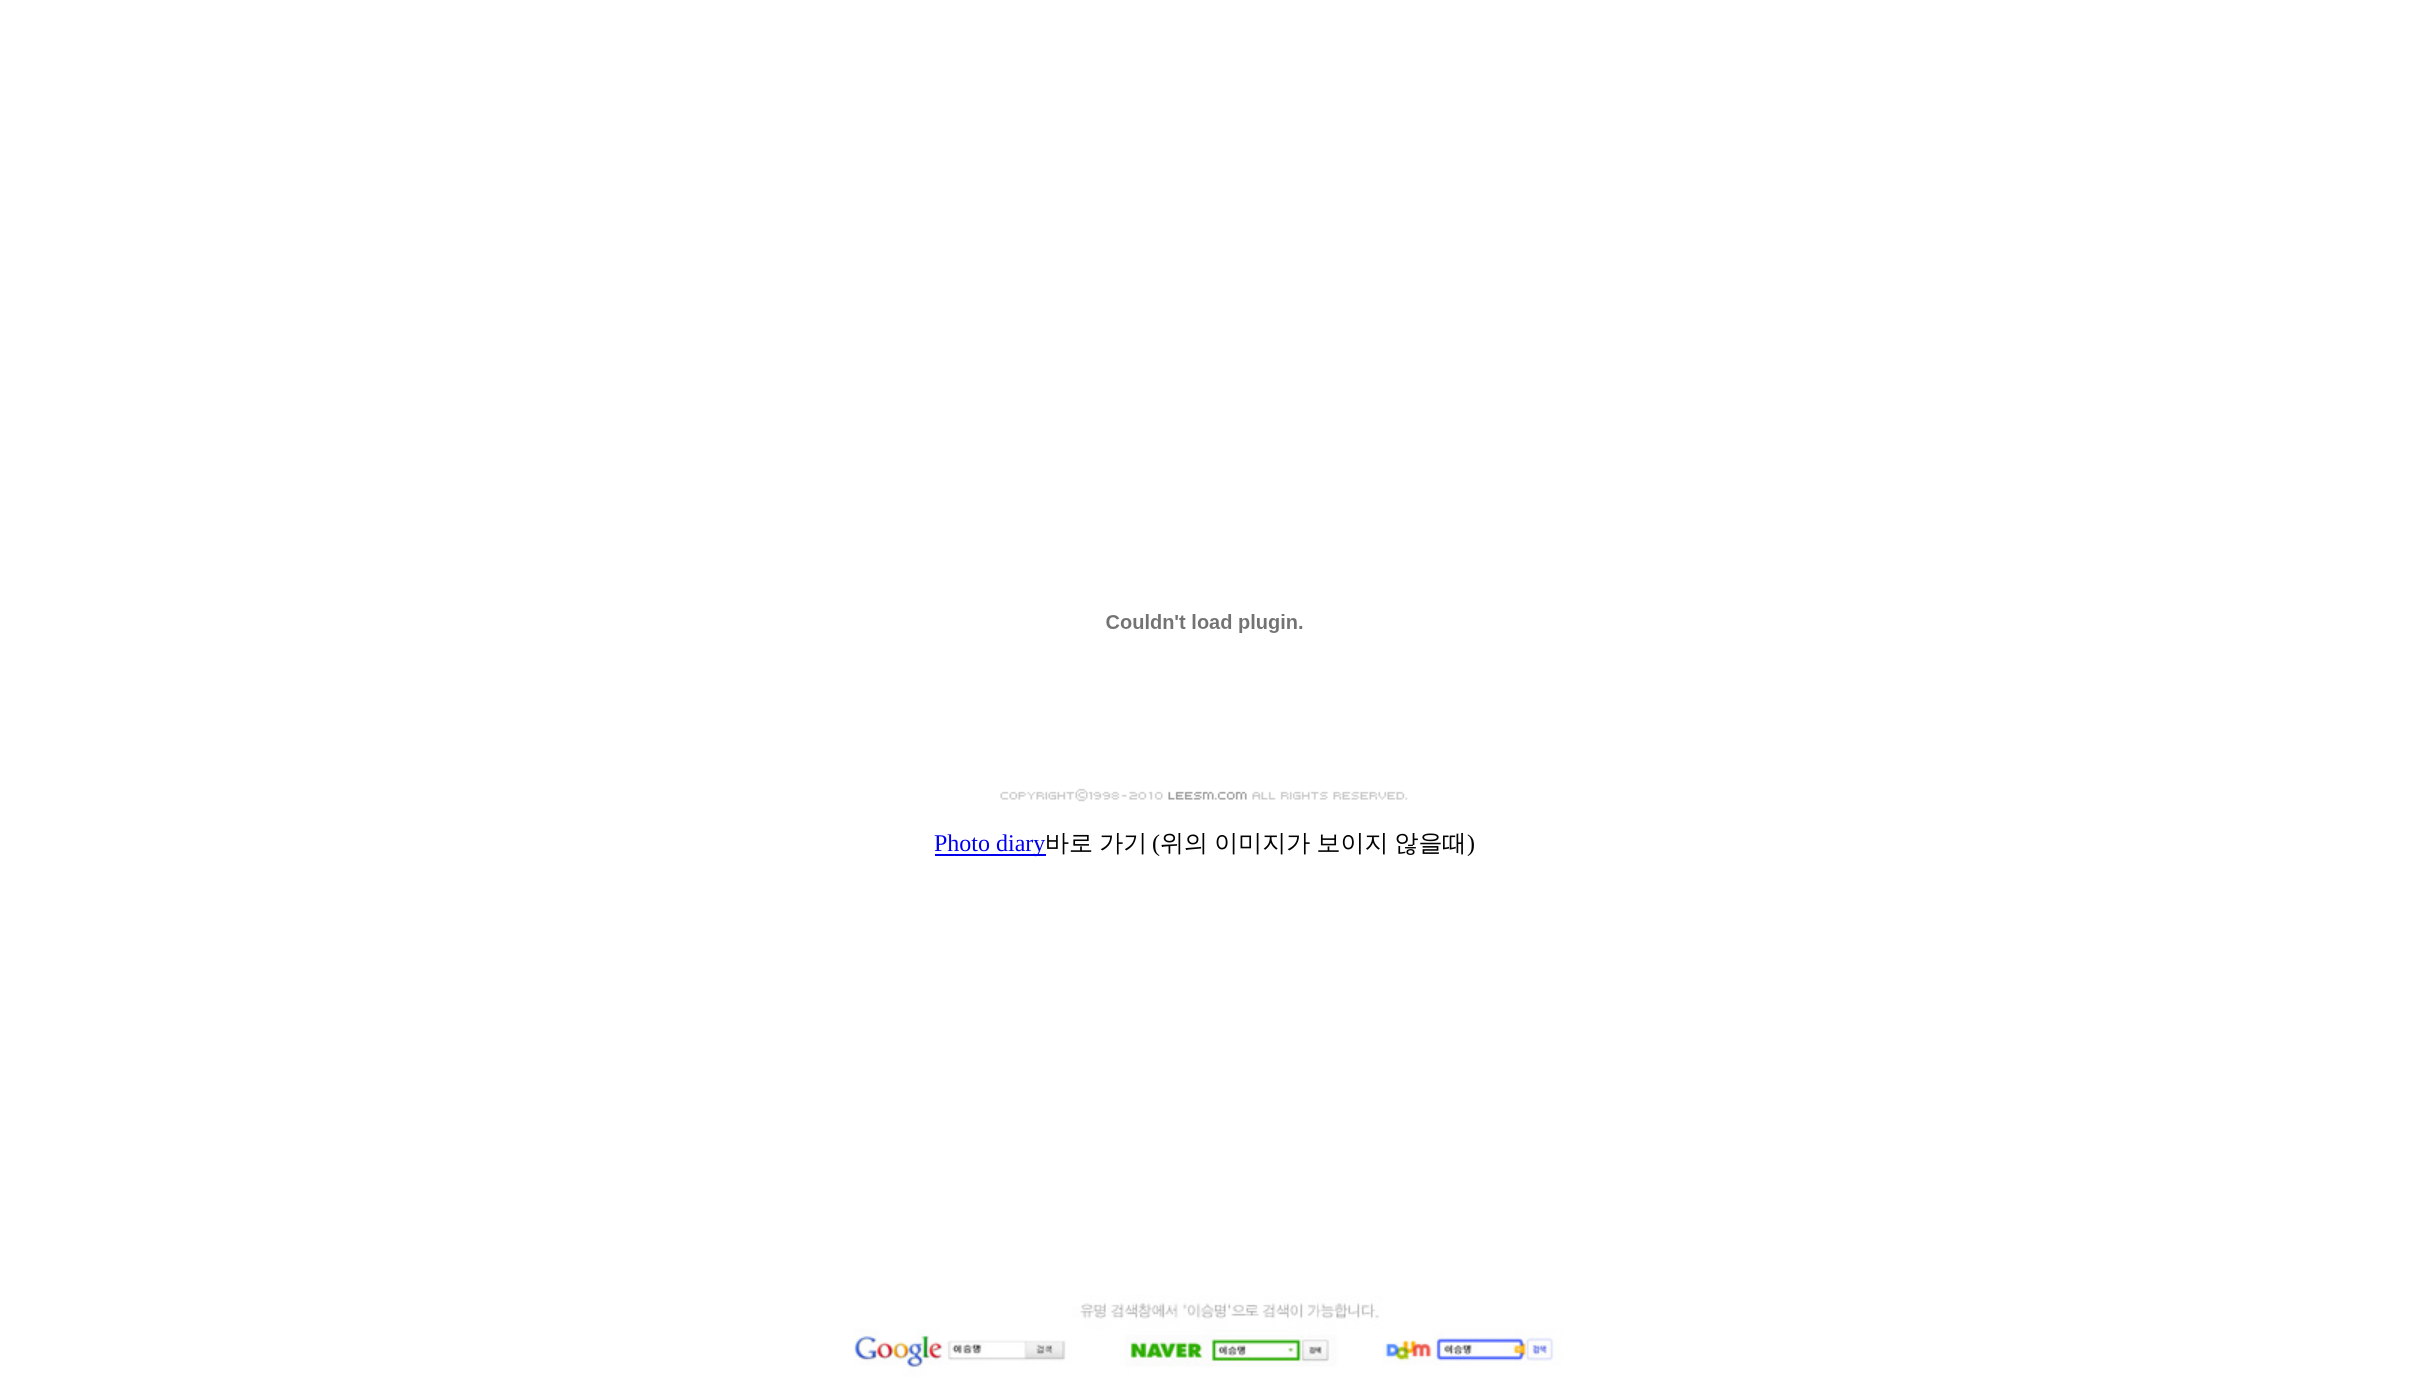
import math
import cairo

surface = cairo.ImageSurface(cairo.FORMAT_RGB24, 2409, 1380)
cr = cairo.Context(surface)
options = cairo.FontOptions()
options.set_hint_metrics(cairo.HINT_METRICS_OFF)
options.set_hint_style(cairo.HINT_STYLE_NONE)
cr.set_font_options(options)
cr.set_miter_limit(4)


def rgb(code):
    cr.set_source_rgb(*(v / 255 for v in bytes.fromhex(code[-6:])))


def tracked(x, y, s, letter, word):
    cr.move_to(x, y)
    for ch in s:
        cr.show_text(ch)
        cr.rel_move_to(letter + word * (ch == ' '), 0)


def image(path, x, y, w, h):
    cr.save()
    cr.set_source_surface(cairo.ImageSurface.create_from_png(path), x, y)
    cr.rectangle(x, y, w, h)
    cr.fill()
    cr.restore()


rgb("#ffffff")
cr.paint()
image("img/1.png", 1106, 614, 197, 19)
image("img/2.png", 1000, 788, 408, 14)
rgb("#0000ee")
cr.rectangle(935, 854, 111, 2)
cr.fill()
image("img/3.png", 854, 1295, 709, 82)
cr.select_font_face("Liberation Serif")
cr.set_font_size(24)
cr.move_to(934, 851)
cr.show_text("Photo diary")
cr.select_font_face("WenQuanYi Zen Hei Medium")
rgb("#000000")
tracked(1045, 851, "바로 가기", 0, -1)
cr.select_font_face("Liberation Serif")
cr.move_to(1152, 851)
cr.show_text("(")
cr.select_font_face("WenQuanYi Zen Hei Medium")
tracked(1160, 851, "위의 이미지가 보이지 않을때", 0, -1)
cr.select_font_face("Liberation Serif")
cr.move_to(1467, 851)
cr.show_text(")")
surface.write_to_png("page.png")
